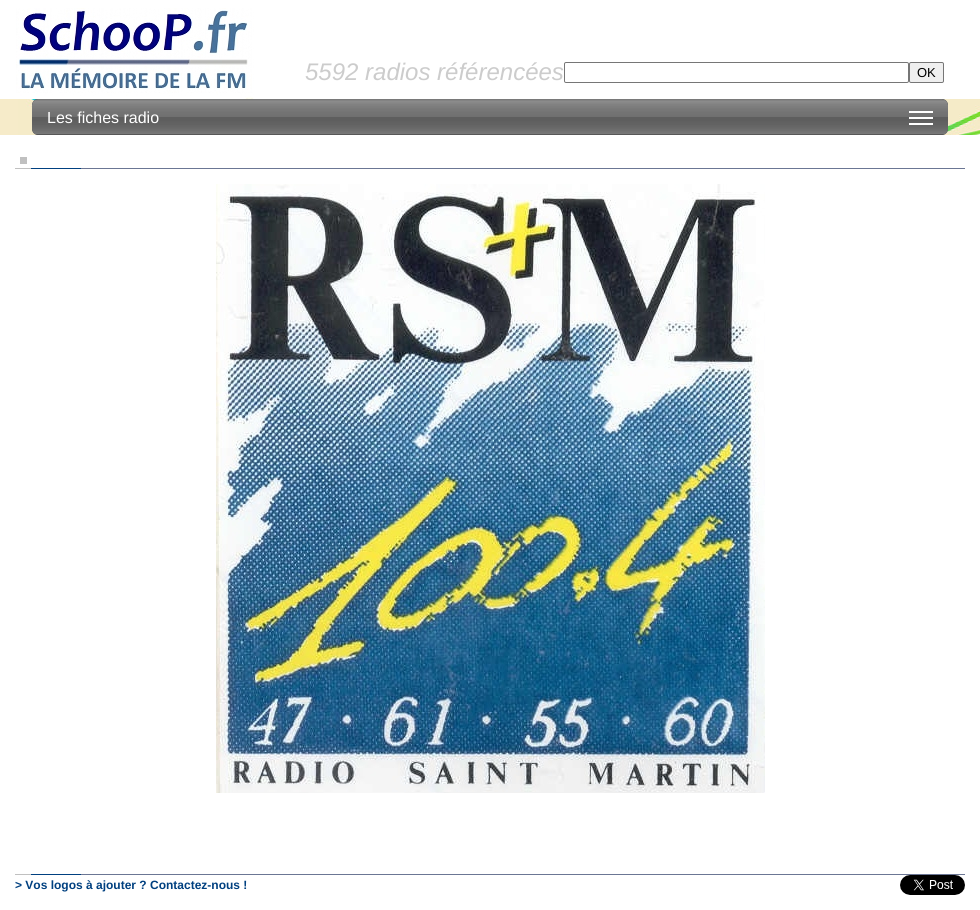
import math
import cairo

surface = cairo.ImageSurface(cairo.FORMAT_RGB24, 980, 910)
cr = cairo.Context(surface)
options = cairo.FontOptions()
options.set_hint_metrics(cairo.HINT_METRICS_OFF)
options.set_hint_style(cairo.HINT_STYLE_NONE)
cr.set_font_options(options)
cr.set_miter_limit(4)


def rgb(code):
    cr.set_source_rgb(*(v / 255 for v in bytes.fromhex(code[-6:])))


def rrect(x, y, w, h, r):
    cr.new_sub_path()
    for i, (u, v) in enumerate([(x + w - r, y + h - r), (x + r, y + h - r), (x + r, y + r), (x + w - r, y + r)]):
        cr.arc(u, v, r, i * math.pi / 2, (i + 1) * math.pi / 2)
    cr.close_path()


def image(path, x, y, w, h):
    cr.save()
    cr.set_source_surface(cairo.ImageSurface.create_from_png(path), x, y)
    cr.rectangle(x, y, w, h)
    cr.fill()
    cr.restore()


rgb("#f6ebc9")
cr.paint()
image("img/1.png", 18, 99, 962, 36)
rgb("#ffffff")
cr.rectangle(0, 0, 980, 99)
cr.fill()
image("img/2.png", 16, 8, 238, 91)
rrect(564.5, 62.5, 344, 20, 1.5)
rgb("#767676")
cr.set_line_width(1)
cr.stroke()
rgb("#efefef")
rrect(909.5, 62.5, 34, 20, 1.5)
cr.fill_preserve()
rgb("#767676")
cr.stroke()
rgb("#555555")
rrect(32, 99, 916, 36, 6)
cr.fill()
image("img/3.png", 32, 99, 916, 36)
for x, y, w, h, color in [
    (909, 111, 24, 2, "#ffffff"),
    (909, 117, 24, 2, "#ffffff"),
    (909, 123, 24, 2, "#ffffff"),
    (0, 135, 980, 775, "#ffffff"),
    (20, 157, 7, 7, "#c0c0c0"),
    (81, 168, 884, 1, "#6b7694"),
    (15, 168, 16, 1, "#c0c0c0"),
    (31, 168, 50, 1, "#004080"),
]:
    rgb(color)
    cr.rectangle(x, y, w, h)
    cr.fill()
image("img/4.png", 216, 184, 549, 609)
for x, y, w, h, color in [
    (81, 874, 884, 1, "#6b7694"),
    (15, 874, 16, 1, "#c0c0c0"),
    (31, 874, 50, 1, "#004080"),
]:
    rgb(color)
    cr.rectangle(x, y, w, h)
    cr.fill()
image("img/5.png", 900, 875, 65, 20)
cr.select_font_face("Liberation Sans", cairo.FONT_SLANT_ITALIC)
cr.set_font_size(24)
rgb("#cccccc")
cr.move_to(305, 80)
cr.show_text("5592 radios référencées")
cr.select_font_face("Liberation Sans")
cr.set_font_size(13)
rgb("#000000")
cr.move_to(917, 77)
cr.show_text("OK")
cr.set_font_size(16)
rgb("#ffffff")
cr.move_to(47, 123)
cr.show_text("Les fiches radio")
cr.select_font_face("Liberation Sans", cairo.FONT_SLANT_NORMAL, cairo.FONT_WEIGHT_BOLD)
cr.set_font_size(12)
rgb("#004080")
cr.move_to(15, 889)
cr.show_text("> Vos logos à ajouter ? Contactez-nous !")
surface.write_to_png("page.png")
